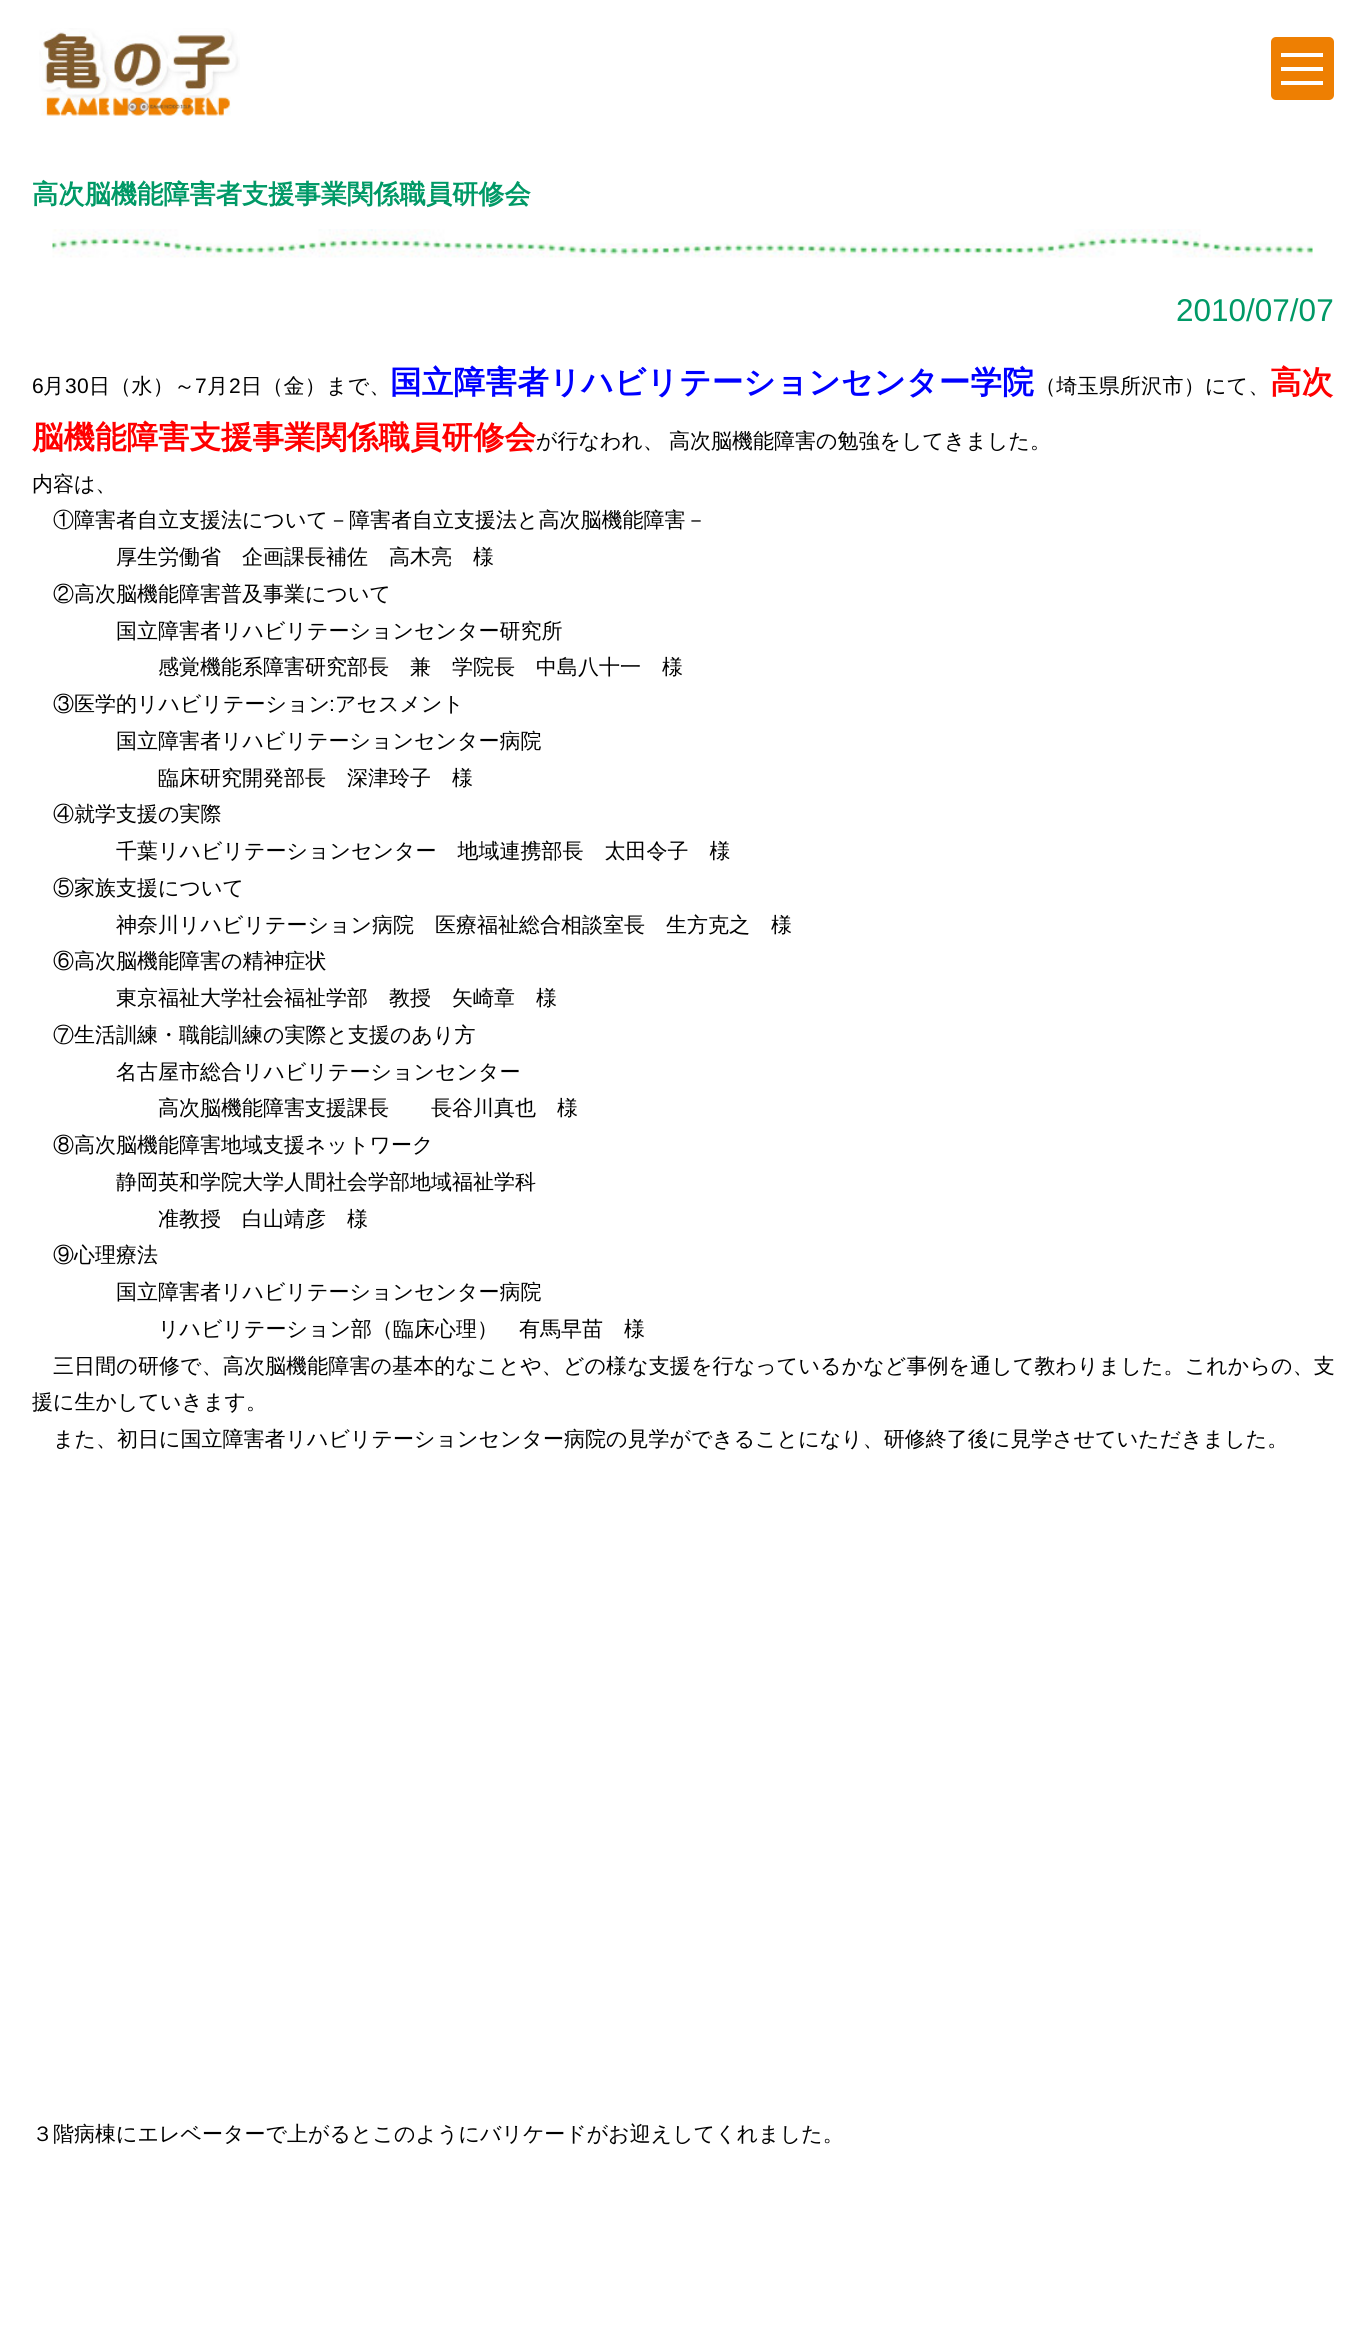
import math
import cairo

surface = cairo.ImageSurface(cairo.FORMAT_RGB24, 1364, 2349)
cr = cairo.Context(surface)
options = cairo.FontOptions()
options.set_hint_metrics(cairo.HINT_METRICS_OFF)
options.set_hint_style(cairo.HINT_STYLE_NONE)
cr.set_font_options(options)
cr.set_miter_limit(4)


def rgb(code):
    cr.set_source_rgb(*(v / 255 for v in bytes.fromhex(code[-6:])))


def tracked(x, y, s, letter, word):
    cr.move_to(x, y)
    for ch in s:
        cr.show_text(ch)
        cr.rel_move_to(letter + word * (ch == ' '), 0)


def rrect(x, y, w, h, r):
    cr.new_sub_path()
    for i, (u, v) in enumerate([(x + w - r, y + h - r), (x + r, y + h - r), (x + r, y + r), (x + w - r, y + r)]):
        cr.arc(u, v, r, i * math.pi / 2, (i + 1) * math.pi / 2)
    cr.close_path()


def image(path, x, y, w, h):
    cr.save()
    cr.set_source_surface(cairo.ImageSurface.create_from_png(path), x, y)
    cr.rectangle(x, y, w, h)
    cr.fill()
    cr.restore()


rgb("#ffffff")
cr.paint()
image("img/1.png", 39, 28, 201, 88)
rgb("#ee7f02")
rrect(1271, 37, 63, 63, 5)
cr.fill()
for x, y, w, h, color in [
    (1281, 53, 42, 4, "#ffffff"),
    (1281, 67, 42, 4, "#ffffff"),
    (1281, 81, 42, 4, "#ffffff"),
]:
    rgb(color)
    cr.rectangle(x, y, w, h)
    cr.fill()
image("img/2.png", 52, 229, 1261, 29)
cr.select_font_face("WenQuanYi Zen Hei", cairo.FONT_SLANT_NORMAL, cairo.FONT_WEIGHT_BOLD)
cr.set_font_size(26.25)
rgb("#009966")
cr.move_to(32, 203)
cr.show_text("高次脳機能障害者支援事業関係職員研修会")
cr.select_font_face("Liberation Sans")
cr.set_font_size(31.5)
cr.move_to(1176, 321)
cr.show_text("2010/07/07")
cr.set_font_size(21)
rgb("#000000")
tracked(32, 393, "6", 0.25, 0)
cr.select_font_face("WenQuanYi Zen Hei Medium")
tracked(43, 393, "月", 0.25, 0)
cr.select_font_face("Liberation Sans")
tracked(65, 393, "30", 0.25, 0)
cr.select_font_face("WenQuanYi Zen Hei Medium")
tracked(89, 393, "日（水）～", 0.25, 0)
cr.select_font_face("Liberation Sans")
tracked(195, 393, "7", 0.25, 0)
cr.select_font_face("WenQuanYi Zen Hei Medium")
tracked(207, 393, "月", 0.25, 0)
cr.select_font_face("Liberation Sans")
tracked(229, 393, "2", 0.25, 0)
cr.select_font_face("WenQuanYi Zen Hei Medium")
tracked(241, 393, "日（金）まで、", 0.25, 0)
cr.select_font_face("WenQuanYi Zen Hei", cairo.FONT_SLANT_NORMAL, cairo.FONT_WEIGHT_BOLD)
cr.set_font_size(31.5)
rgb("#0000ff")
tracked(390, 393, "国立障害者リハビリテーションセンター学院", 0.3, 0)
cr.select_font_face("WenQuanYi Zen Hei Medium")
cr.set_font_size(21)
rgb("#000000")
tracked(1035, 393, "（埼玉県所沢市）にて、", 0.25, 0)
cr.select_font_face("WenQuanYi Zen Hei", cairo.FONT_SLANT_NORMAL, cairo.FONT_WEIGHT_BOLD)
cr.set_font_size(31.5)
rgb("#ff0000")
cr.move_to(1270, 393)
cr.show_text("高次")
cr.move_to(32, 448)
cr.show_text("脳機能障害支援事業関係職員研修会")
cr.select_font_face("WenQuanYi Zen Hei Medium")
cr.set_font_size(21)
rgb("#000000")
for x, y, s in [
    (536, 448, "が行なわれ、"),
    (669, 448, "高次脳機能障害の勉強をしてきました。"),
    (32, 491, "内容は、"),
    (53, 527, "①障害者自立支援法について－障害者自立支援法と高次脳機能障害－"),
    (116, 564, "厚生労働省　企画課長補佐　高木亮　様"),
    (53, 601, "②高次脳機能障害普及事業について"),
    (116, 638, "国立障害者リハビリテーションセンター研究所"),
    (158, 674, "感覚機能系障害研究部長　兼　学院長　中島八十一　様"),
    (53, 711, "③医学的リハビリテーション"),
]:
    cr.move_to(x, y)
    cr.show_text(s)
cr.select_font_face("Liberation Sans")
cr.move_to(329, 711)
cr.show_text(":")
cr.select_font_face("WenQuanYi Zen Hei Medium")
for x, y, s in [
    (335, 711, "アセスメント"),
    (116, 748, "国立障害者リハビリテーションセンター病院"),
    (158, 785, "臨床研究開発部長　深津玲子　様"),
    (53, 821, "④就学支援の実際"),
    (116, 858, "千葉リハビリテーションセンター　地域連携部長　太田令子　様"),
    (53, 895, "⑤家族支援について"),
    (116, 932, "神奈川リハビリテーション病院　医療福祉総合相談室長　生方克之　様"),
    (53, 968, "⑥高次脳機能障害の精神症状"),
    (116, 1005, "東京福祉大学社会福祉学部　教授　矢崎章　様"),
    (53, 1042, "⑦生活訓練・職能訓練の実際と支援のあり方"),
    (116, 1079, "名古屋市総合リハビリテーションセンター"),
    (158, 1115, "高次脳機能障害支援課長　　長谷川真也　様"),
    (53, 1152, "⑧高次脳機能障害地域支援ネットワーク"),
    (116, 1189, "静岡英和学院大学人間社会学部地域福祉学科"),
    (158, 1226, "准教授　白山靖彦　様"),
    (53, 1262, "⑨心理療法"),
    (116, 1299, "国立障害者リハビリテーションセンター病院"),
    (158, 1336, "リハビリテーション部（臨床心理）　有馬早苗　様"),
]:
    cr.move_to(x, y)
    cr.show_text(s)
tracked(53, 1373, "三日間の研修で、高次脳機能障害の基本的なことや、どの様な支援を行なっているかなど事例を通して教わりました。これからの、支", 0.1, 0)
for x, y, s in [
    (32, 1409, "援に生かしていきます。"),
    (53, 1446, "また、初日に国立障害者リハビリテーションセンター病院の見学ができることになり、研修終了後に見学させていただきました。"),
    (32, 2141, "３階病棟にエレベーターで上がるとこのようにバリケードがお迎えしてくれました。"),
]:
    cr.move_to(x, y)
    cr.show_text(s)
surface.write_to_png("page.png")
